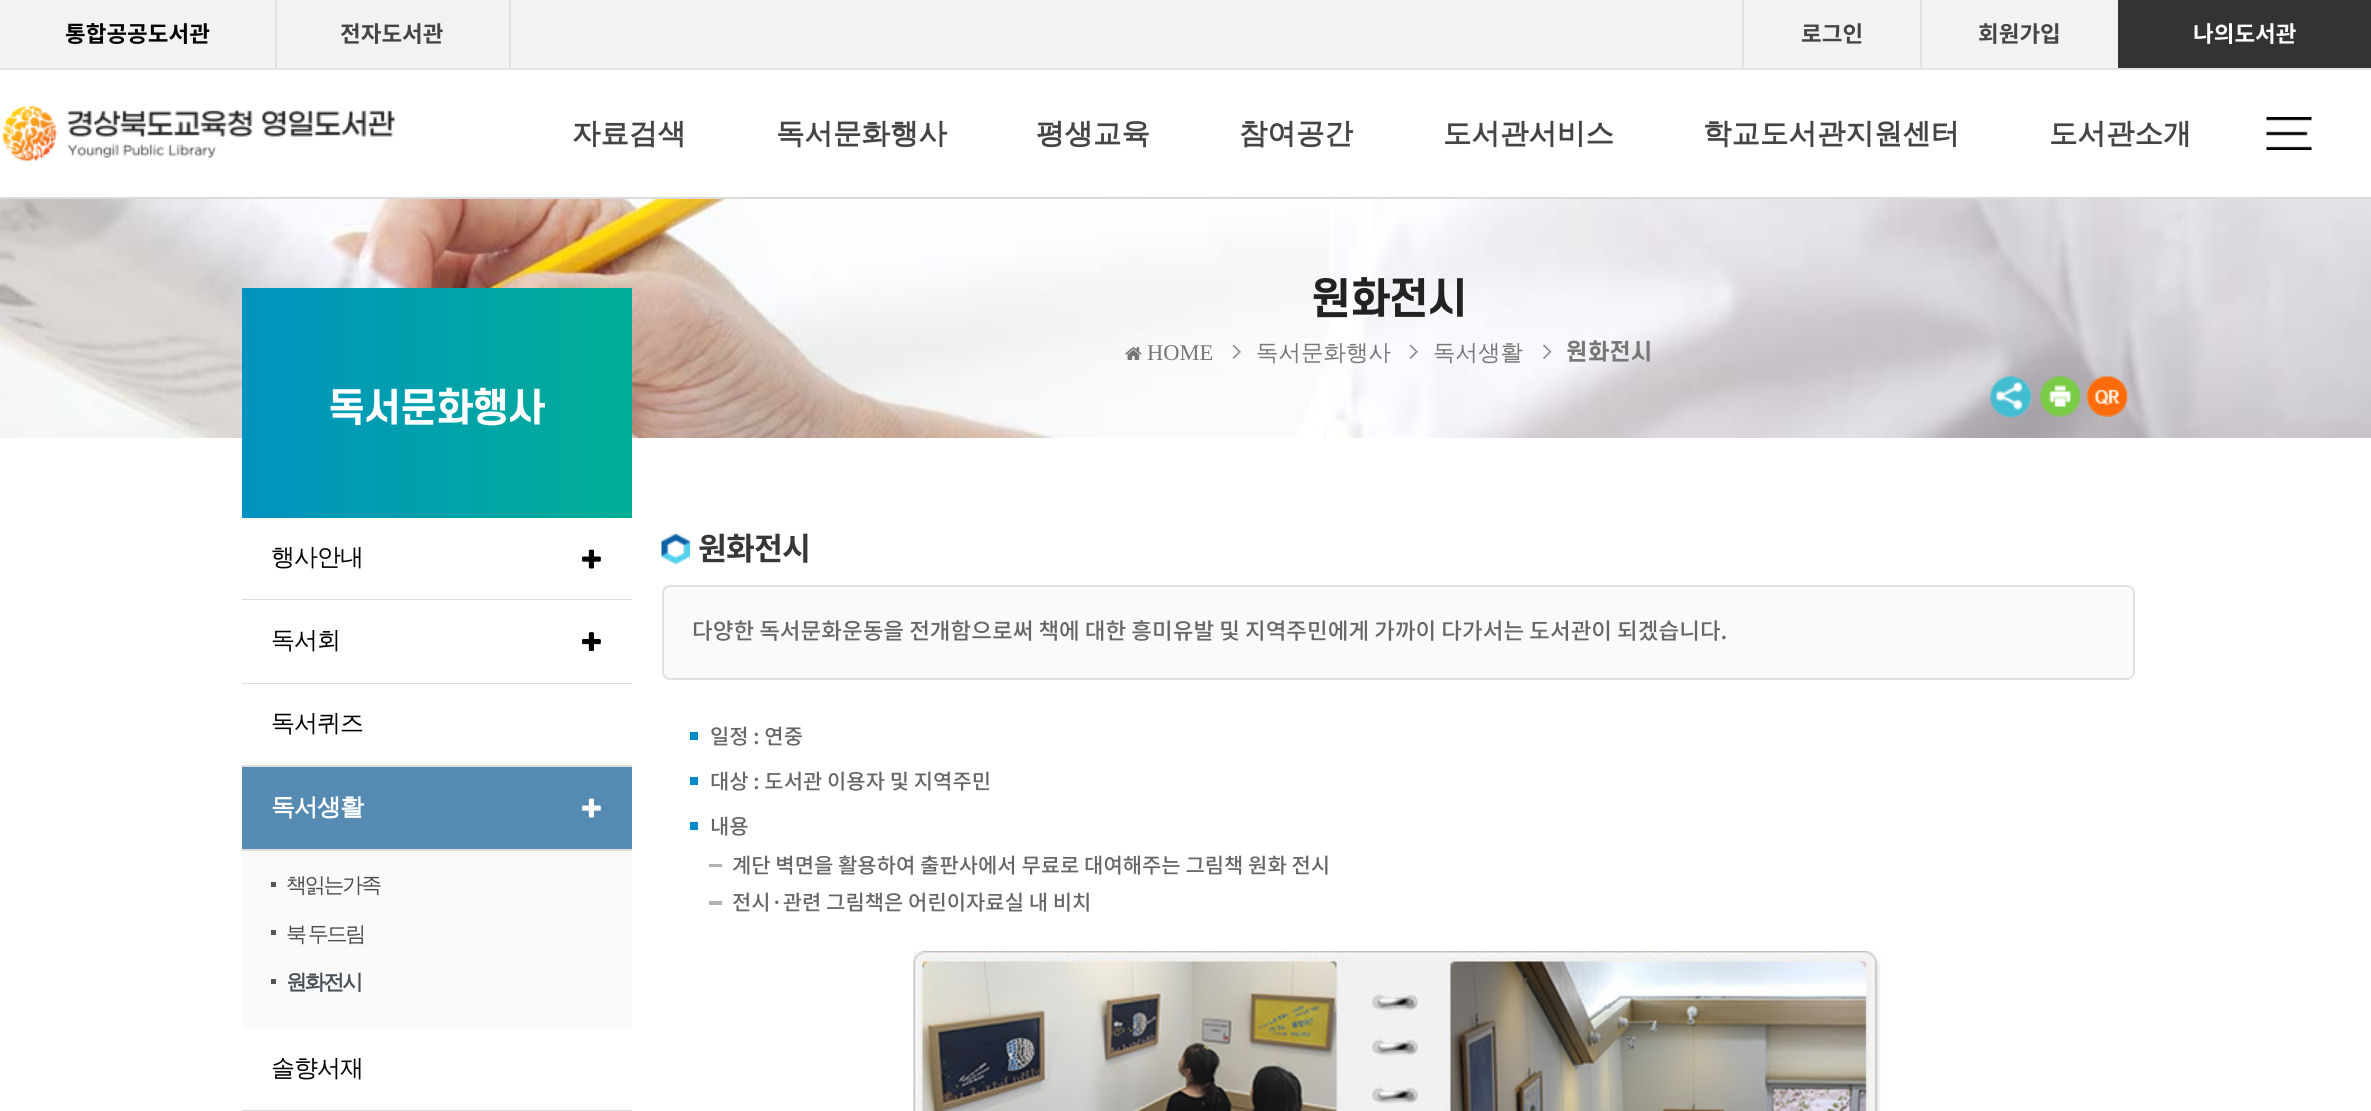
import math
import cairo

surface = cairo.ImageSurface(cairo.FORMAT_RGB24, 2371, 1111)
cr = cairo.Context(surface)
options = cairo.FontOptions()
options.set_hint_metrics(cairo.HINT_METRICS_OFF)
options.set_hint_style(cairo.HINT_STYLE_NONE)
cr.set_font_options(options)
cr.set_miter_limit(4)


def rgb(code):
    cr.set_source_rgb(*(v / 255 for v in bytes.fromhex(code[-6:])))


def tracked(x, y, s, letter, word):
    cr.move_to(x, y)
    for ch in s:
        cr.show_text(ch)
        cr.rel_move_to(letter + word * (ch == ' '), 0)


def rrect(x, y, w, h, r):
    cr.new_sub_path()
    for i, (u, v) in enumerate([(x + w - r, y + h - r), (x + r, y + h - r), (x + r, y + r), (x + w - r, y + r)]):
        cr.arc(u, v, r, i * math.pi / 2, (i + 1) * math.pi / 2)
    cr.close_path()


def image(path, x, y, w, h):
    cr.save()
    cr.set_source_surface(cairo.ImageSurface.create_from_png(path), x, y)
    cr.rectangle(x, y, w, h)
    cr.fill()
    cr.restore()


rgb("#ffffff")
cr.paint()
for x, y, w, h, color in [
    (0, 0, 2118, 68, "#f2f2f2"),
    (0, 68, 2371, 2, "#e4e4e4"),
    (275, 0, 2, 68, "#e0e0e0"),
    (509, 0, 2, 68, "#e0e0e0"),
    (1742, 0, 2, 68, "#e0e0e0"),
    (1920, 0, 2, 68, "#e0e0e0"),
    (2118, 0, 253, 68, "#333333"),
    (0, 197, 2371, 2, "#dbdbdb"),
]:
    rgb(color)
    cr.rectangle(x, y, w, h)
    cr.fill()
image("img/1.png", 2, 106, 393, 55)
image("img/2.png", 2266, 117, 46, 33)
image("img/3.png", 0, 199, 2371, 239)
image("img/4.png", 1125, 347, 17, 13)
image("img/5.png", 1232, 344, 9, 15)
image("img/6.png", 1409, 344, 9, 15)
image("img/7.png", 1543, 344, 9, 15)
image("img/8.png", 1990, 376, 42, 41)
image("img/9.png", 2039, 376, 42, 41)
image("img/10.png", 2086, 376, 42, 41)
gradient = cairo.LinearGradient(242, 403, 632, 403)
gradient.add_color_stop_rgba(0, 0, 0.576, 0.753, 1)
gradient.add_color_stop_rgba(1, 0, 0.686, 0.588, 1)
cr.set_source(gradient)
cr.rectangle(242, 288, 390, 230)
cr.fill()
rgb("#dddddd")
cr.rectangle(242, 599, 390, 1)
cr.fill()
image("img/11.png", 582, 549, 19, 20)
cr.rectangle(242, 683, 390, 1)
cr.fill()
image("img/12.png", 582, 632, 19, 19)
for x, y, w, h, color in [
    (242, 765, 390, 2, "#dddddd"),
    (242, 767, 390, 82, "#558ab3"),
    (242, 849, 390, 2, "#dddddd"),
]:
    rgb(color)
    cr.rectangle(x, y, w, h)
    cr.fill()
image("img/13.png", 582, 798, 19, 20)
for x, y, w, h, color in [
    (242, 851, 390, 177, "#fafafa"),
    (271, 882, 5, 5, "#555555"),
    (271, 930, 5, 5, "#555555"),
    (271, 979, 5, 5, "#555555"),
    (242, 1110, 390, 1, "#dddddd"),
]:
    rgb(color)
    cr.rectangle(x, y, w, h)
    cr.fill()
image("img/14.png", 661, 534, 29, 30)
rgb("#fafafa")
rrect(663, 586, 1471, 93, 7)
cr.fill_preserve()
rgb("#e1e1e1")
cr.stroke()
for x, y, w, h, color in [
    (690, 732, 8, 8, "#008aca"),
    (690, 777, 8, 8, "#008aca"),
    (690, 822, 8, 8, "#008aca"),
    (709, 864, 13, 3, "#b2b2b2"),
    (709, 901, 13, 4, "#b2b2b2"),
]:
    rgb(color)
    cr.rectangle(x, y, w, h)
    cr.fill()
image("img/15.png", 913, 951, 968, 160)
cr.select_font_face("Noto Sans", cairo.FONT_SLANT_NORMAL, cairo.FONT_WEIGHT_BOLD)
cr.set_font_size(22.5)
rgb("#020202")
cr.move_to(65, 42)
cr.show_text("통합공공도서관")
rgb("#454545")
for x, y, s in [
    (340, 42, "전자도서관"),
    (1801, 42, "로그인"),
    (1978, 42, "회원가입"),
]:
    cr.move_to(x, y)
    cr.show_text(s)
rgb("#ffffff")
cr.move_to(2193, 42)
cr.show_text("나의도서관")
cr.select_font_face("WenQuanYi Zen Hei", cairo.FONT_SLANT_NORMAL, cairo.FONT_WEIGHT_BOLD)
cr.set_font_size(28.5)
rgb("#454545")
for x, y, s in [
    (572, 143, "자료검색"),
    (776, 143, "독서문화행사"),
    (1036, 143, "평생교육"),
    (1239, 143, "참여공간"),
    (1443, 143, "도서관서비스"),
    (1703, 143, "학교도서관지원센터"),
    (2049, 143, "도서관소개"),
]:
    cr.move_to(x, y)
    cr.show_text(s)
cr.select_font_face("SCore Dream", cairo.FONT_SLANT_NORMAL, cairo.FONT_WEIGHT_BOLD)
cr.set_font_size(42)
rgb("#222222")
tracked(1311, 314, "원화전시", -1.5, 0)
cr.select_font_face("Liberation Serif")
cr.set_font_size(22.5)
rgb("#777777")
cr.move_to(1147, 360)
cr.show_text("HOME")
cr.select_font_face("WenQuanYi Zen Hei Medium")
cr.move_to(1256, 360)
cr.show_text("독서문화행사")
cr.move_to(1433, 360)
cr.show_text("독서생활")
cr.select_font_face("SCore Dream", cairo.FONT_SLANT_NORMAL, cairo.FONT_WEIGHT_BOLD)
cr.move_to(1566, 360)
cr.show_text("원화전시")
cr.set_font_size(39)
rgb("#ffffff")
tracked(328, 422, "독서문화행사", -1.5, 0)
cr.select_font_face("WenQuanYi Zen Hei Medium")
cr.set_font_size(24)
rgb("#020202")
for x, y, s in [
    (271, 565, "행사안내"),
    (271, 648, "독서회"),
    (271, 731, "독서퀴즈"),
]:
    tracked(x, y, s, -1, 0)
cr.select_font_face("WenQuanYi Zen Hei", cairo.FONT_SLANT_NORMAL, cairo.FONT_WEIGHT_BOLD)
rgb("#ffffff")
tracked(271, 815, "독서생활", -1, 0)
cr.select_font_face("WenQuanYi Zen Hei Medium")
cr.set_font_size(21)
rgb("#4c4c4c")
tracked(286, 892, "책읽는가족", -2.25, 0)
tracked(286, 941, "북 두드림", -2.25, -1)
cr.select_font_face("WenQuanYi Zen Hei", cairo.FONT_SLANT_NORMAL, cairo.FONT_WEIGHT_BOLD)
rgb("#464f56")
tracked(286, 989, "원화전시", -2.25, 0)
cr.select_font_face("WenQuanYi Zen Hei Medium")
cr.set_font_size(24)
rgb("#020202")
tracked(271, 1076, "솔향서재", -1, 0)
cr.select_font_face("Noto Sans", cairo.FONT_SLANT_NORMAL, cairo.FONT_WEIGHT_BOLD)
cr.set_font_size(31.5)
rgb("#373737")
tracked(698, 560, "원화전시", -1, 0)
cr.select_font_face("Noto Sans Medium")
cr.set_font_size(22.5)
rgb("#666666")
cr.move_to(692, 639)
cr.show_text("다양한 독서문화운동을 전개함으로써 책에 대한 흥미유발 및 지역주민에게 가까이 다가서는 도서관이 되겠습니다.")
cr.set_font_size(21)
for x, y, s in [
    (710, 744, "일정 : 연중"),
    (710, 789, "대상 : 도서관 이용자 및 지역주민"),
    (710, 834, "내용"),
    (732, 873, "계단 벽면을 활용하여 출판사에서 무료로 대여해주는 그림책 원화 전시"),
    (732, 910, "전시·관련 그림책은 어린이자료실 내 비치"),
]:
    cr.move_to(x, y)
    cr.show_text(s)
surface.write_to_png("page.png")
